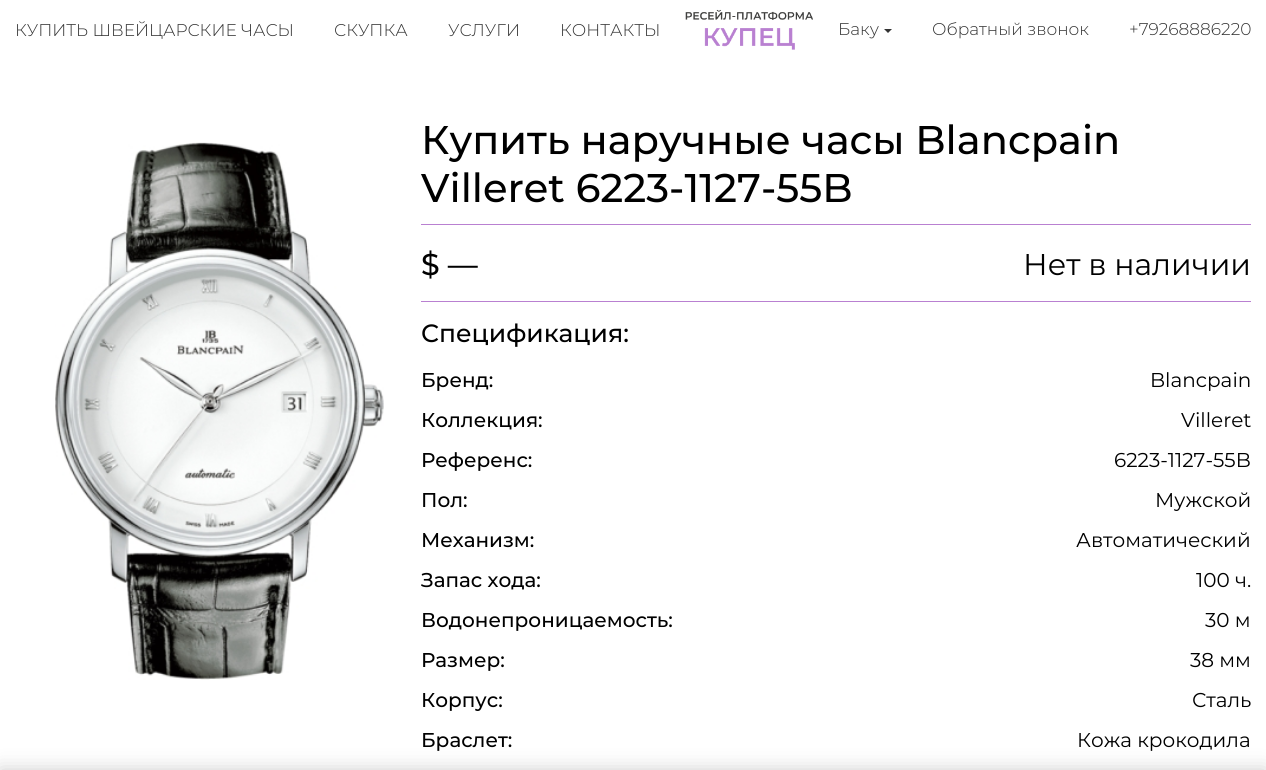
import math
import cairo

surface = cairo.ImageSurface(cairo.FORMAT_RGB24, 1266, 770)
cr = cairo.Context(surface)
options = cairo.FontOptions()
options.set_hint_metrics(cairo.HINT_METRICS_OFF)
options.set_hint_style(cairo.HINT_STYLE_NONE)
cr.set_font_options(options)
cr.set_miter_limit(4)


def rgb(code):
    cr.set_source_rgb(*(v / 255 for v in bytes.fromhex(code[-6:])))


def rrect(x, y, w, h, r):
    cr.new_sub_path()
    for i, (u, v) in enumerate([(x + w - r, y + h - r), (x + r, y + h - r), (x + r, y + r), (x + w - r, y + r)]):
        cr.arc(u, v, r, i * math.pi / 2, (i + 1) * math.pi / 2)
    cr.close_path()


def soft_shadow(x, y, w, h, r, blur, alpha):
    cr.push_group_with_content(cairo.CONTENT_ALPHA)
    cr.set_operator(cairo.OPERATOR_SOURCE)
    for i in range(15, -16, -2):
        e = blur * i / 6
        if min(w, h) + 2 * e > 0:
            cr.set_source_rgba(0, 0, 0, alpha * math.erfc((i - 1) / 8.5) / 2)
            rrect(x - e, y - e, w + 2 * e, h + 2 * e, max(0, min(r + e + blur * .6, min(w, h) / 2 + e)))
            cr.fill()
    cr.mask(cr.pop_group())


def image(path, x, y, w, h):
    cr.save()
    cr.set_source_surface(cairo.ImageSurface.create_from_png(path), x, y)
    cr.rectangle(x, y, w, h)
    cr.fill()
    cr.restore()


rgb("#ffffff")
cr.paint()
image("img/1.png", 685, 9, 128, 41)
rgb("#333333")
cr.new_path()
cr.move_to(884, 29)
cr.line_to(892, 29)
cr.line_to(888, 33)
cr.close_path()
cr.fill()
image("img/2.png", 55, 142, 329, 538)
rgb("#b980d1")
cr.rectangle(421, 224, 830, 1)
cr.fill()
cr.rectangle(421, 301, 830, 1)
cr.fill()
rgb("#000000")
soft_shadow(0, 770, 1266, 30, 0, 10, 0.2)
cr.select_font_face("Montserrat Light")
cr.set_font_size(17)
rgb("#333333")
for x, y, s in [
    (15, 36, "КУПИТЬ ШВЕЙЦАРСКИЕ ЧАСЫ"),
    (334, 36, "СКУПКА"),
    (448, 36, "УСЛУГИ"),
    (560, 36, "КОНТАКТЫ"),
    (838, 35, "Баку"),
    (932, 35, "Обратный звонок"),
    (1129, 35, "+79268886220"),
]:
    cr.move_to(x, y)
    cr.show_text(s)
cr.select_font_face("Montserrat Medium")
cr.set_font_size(40)
rgb("#000000")
cr.move_to(421, 154)
cr.show_text("Купить наручные часы Blancpain")
cr.move_to(421, 202)
cr.show_text("Villeret 6223-1127-55B")
cr.set_font_size(30)
cr.move_to(421, 275)
cr.show_text("$ —")
cr.select_font_face("Montserrat")
cr.move_to(1023, 275)
cr.show_text("Нет в наличии")
cr.select_font_face("Montserrat Medium")
cr.set_font_size(25)
cr.move_to(421, 342)
cr.show_text("Спецификация:")
cr.set_font_size(20)
cr.move_to(421, 387)
cr.show_text("Бренд:")
cr.select_font_face("Montserrat")
cr.move_to(1150, 387)
cr.show_text("Blancpain")
cr.select_font_face("Montserrat Medium")
cr.move_to(421, 427)
cr.show_text("Коллекция:")
cr.select_font_face("Montserrat")
cr.move_to(1181, 427)
cr.show_text("Villeret")
cr.select_font_face("Montserrat Medium")
cr.move_to(421, 467)
cr.show_text("Референс:")
cr.select_font_face("Montserrat")
cr.move_to(1114, 467)
cr.show_text("6223-1127-55B")
cr.select_font_face("Montserrat Medium")
cr.move_to(421, 507)
cr.show_text("Пол:")
cr.select_font_face("Montserrat")
cr.move_to(1155, 507)
cr.show_text("Мужской")
cr.select_font_face("Montserrat Medium")
cr.move_to(421, 547)
cr.show_text("Механизм:")
cr.select_font_face("Montserrat")
cr.move_to(1076, 547)
cr.show_text("Автоматический")
cr.select_font_face("Montserrat Medium")
cr.move_to(421, 587)
cr.show_text("Запас хода:")
cr.select_font_face("Montserrat")
cr.move_to(1196, 587)
cr.show_text("100 ч.")
cr.select_font_face("Montserrat Medium")
cr.move_to(421, 627)
cr.show_text("Водонепроницаемость:")
cr.select_font_face("Montserrat")
cr.move_to(1205, 627)
cr.show_text("30 м")
cr.select_font_face("Montserrat Medium")
cr.move_to(421, 667)
cr.show_text("Размер:")
cr.select_font_face("Montserrat")
cr.move_to(1190, 667)
cr.show_text("38 мм")
cr.select_font_face("Montserrat Medium")
cr.move_to(421, 707)
cr.show_text("Корпус:")
cr.select_font_face("Montserrat")
cr.move_to(1192, 707)
cr.show_text("Сталь")
cr.select_font_face("Montserrat Medium")
cr.move_to(421, 747)
cr.show_text("Браслет:")
cr.select_font_face("Montserrat")
cr.move_to(1077, 747)
cr.show_text("Кожа крокодила")
surface.write_to_png("page.png")
